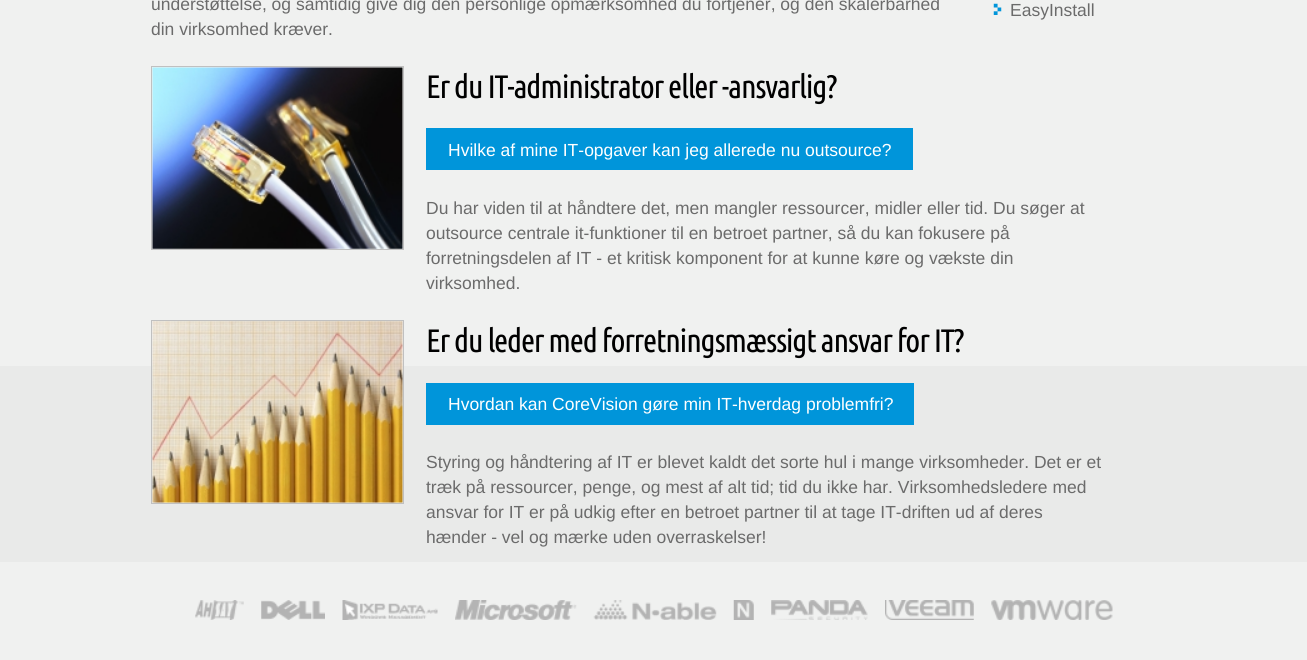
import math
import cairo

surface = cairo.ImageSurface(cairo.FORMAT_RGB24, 1307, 660)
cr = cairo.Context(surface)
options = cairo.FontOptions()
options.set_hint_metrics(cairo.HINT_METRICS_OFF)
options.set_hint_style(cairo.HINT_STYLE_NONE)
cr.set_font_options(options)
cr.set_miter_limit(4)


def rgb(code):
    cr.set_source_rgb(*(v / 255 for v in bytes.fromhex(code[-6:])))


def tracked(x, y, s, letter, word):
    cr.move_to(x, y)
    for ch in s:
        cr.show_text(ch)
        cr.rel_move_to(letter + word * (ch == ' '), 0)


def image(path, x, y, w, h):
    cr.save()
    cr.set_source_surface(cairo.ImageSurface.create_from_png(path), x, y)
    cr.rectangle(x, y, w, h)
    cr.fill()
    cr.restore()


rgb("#f0f1f0")
cr.paint()
rgb("#e9eae9")
cr.rectangle(0, 366, 1307, 196)
cr.fill()
image("img/1.png", 993, 3, 9, 12)
cr.rectangle(151.5, 66.5, 252, 183)
rgb("#c0c0c0")
cr.set_line_width(1)
cr.stroke()
image("img/2.png", 152, 67, 251, 182)
rgb("#0095da")
cr.rectangle(426, 128, 487, 42)
cr.fill()
cr.rectangle(151.5, 320.5, 252, 183)
rgb("#c0c0c0")
cr.stroke()
image("img/3.png", 152, 321, 251, 182)
rgb("#0095da")
cr.rectangle(426, 383, 488, 42)
cr.fill()
image("img/4.png", 195, 600, 49, 20)
image("img/5.png", 261, 600, 64, 20)
image("img/6.png", 342, 600, 96, 20)
image("img/7.png", 455, 600, 122, 20)
image("img/8.png", 593, 600, 124, 20)
image("img/9.png", 733, 600, 21, 20)
image("img/10.png", 771, 600, 97, 20)
image("img/11.png", 885, 600, 89, 20)
image("img/12.png", 991, 600, 122, 20)
cr.select_font_face("Liberation Sans")
cr.set_font_size(17.5)
rgb("#6b6b6b")
for x, y, s in [
    (151, 10, "understøttelse, og samtidig give dig den personlige opmærksomhed du fortjener, og den skalerbarhed"),
    (151, 35, "din virksomhed kræver."),
    (1010, 16, "EasyInstall"),
]:
    cr.move_to(x, y)
    cr.show_text(s)
cr.select_font_face("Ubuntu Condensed")
cr.set_font_size(32.5)
rgb("#000000")
tracked(426, 98, "Er du IT-administrator eller -ansvarlig?", -1.25, 0)
cr.select_font_face("Liberation Sans")
cr.set_font_size(17.5)
rgb("#ffffff")
cr.move_to(448, 156)
cr.show_text("Hvilke af mine IT-opgaver kan jeg allerede nu outsource?")
rgb("#6b6b6b")
for x, y, s in [
    (426, 214, "Du har viden til at håndtere det, men mangler ressourcer, midler eller tid. Du søger at"),
    (426, 239, "outsource centrale it-funktioner til en betroet partner, så du kan fokusere på"),
    (426, 264, "forretningsdelen af IT - et kritisk komponent for at kunne køre og vækste din"),
    (426, 289, "virksomhed."),
]:
    cr.move_to(x, y)
    cr.show_text(s)
cr.select_font_face("Ubuntu Condensed")
cr.set_font_size(32.5)
rgb("#000000")
tracked(426, 352, "Er du leder med forretningsmæssigt ansvar for IT?", -1.25, 0)
cr.select_font_face("Liberation Sans")
cr.set_font_size(17.5)
rgb("#ffffff")
cr.move_to(448, 410)
cr.show_text("Hvordan kan CoreVision gøre min IT-hverdag problemfri?")
rgb("#6b6b6b")
for x, y, s in [
    (426, 468, "Styring og håndtering af IT er blevet kaldt det sorte hul i mange virksomheder. Det er et"),
    (426, 493, "træk på ressourcer, penge, og mest af alt tid; tid du ikke har. Virksomhedsledere med"),
    (426, 518, "ansvar for IT er på udkig efter en betroet partner til at tage IT-driften ud af deres"),
    (426, 543, "hænder - vel og mærke uden overraskelser!"),
]:
    cr.move_to(x, y)
    cr.show_text(s)
surface.write_to_png("page.png")
